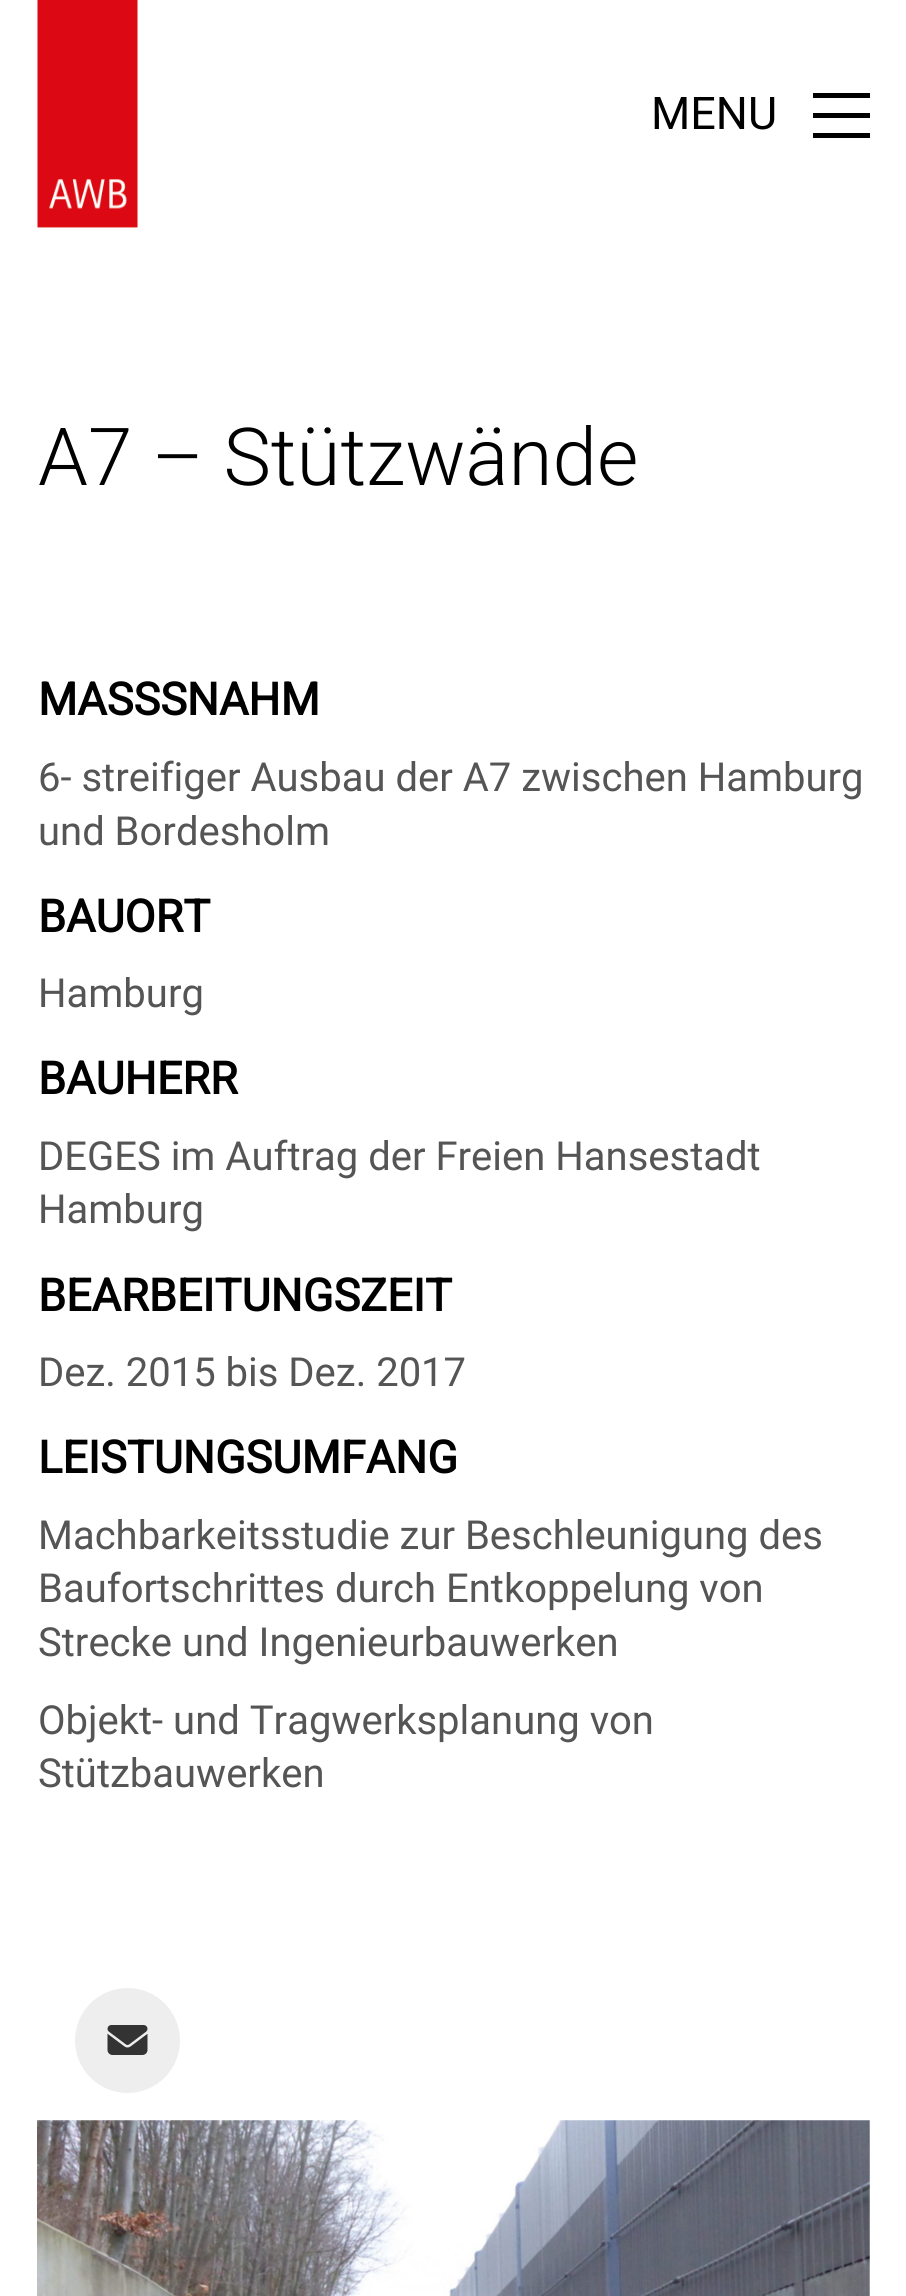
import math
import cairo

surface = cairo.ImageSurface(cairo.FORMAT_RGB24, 906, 2296)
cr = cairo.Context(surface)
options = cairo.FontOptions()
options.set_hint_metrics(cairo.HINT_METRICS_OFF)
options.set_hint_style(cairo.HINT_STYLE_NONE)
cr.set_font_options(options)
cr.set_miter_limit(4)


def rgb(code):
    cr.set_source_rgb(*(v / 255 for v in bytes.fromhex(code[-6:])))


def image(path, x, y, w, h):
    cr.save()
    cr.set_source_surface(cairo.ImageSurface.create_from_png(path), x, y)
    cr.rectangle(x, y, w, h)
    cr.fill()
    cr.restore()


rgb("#ffffff")
cr.paint()
image("img/1.png", 37, 0, 101, 228)
for x, y, w, h, color in [
    (813, 93, 57, 5, "#000000"),
    (813, 113, 57, 5, "#000000"),
    (813, 133, 57, 5, "#000000"),
]:
    rgb(color)
    cr.rectangle(x, y, w, h)
    cr.fill()
rgb("#eeeeee")
cr.arc(127.5, 2040.5, 52.5, 0, 2 * math.pi)
cr.fill()
image("img/2.png", 107, 2025, 41, 30)
image("img/3.png", 37, 2120, 833, 176)
cr.select_font_face("Roboto")
cr.set_font_size(45)
rgb("#000000")
cr.move_to(651, 129)
cr.show_text("MENU")
cr.select_font_face("Heebo Light")
cr.set_font_size(80)
cr.move_to(38, 485)
cr.show_text("A7 – Stützwände")
cr.select_font_face("Heebo", cairo.FONT_SLANT_NORMAL, cairo.FONT_WEIGHT_BOLD)
cr.set_font_size(45)
cr.move_to(38, 715)
cr.show_text("MASSSNAHM")
cr.select_font_face("Roboto")
cr.set_font_size(40)
rgb("#555555")
cr.move_to(38, 791)
cr.show_text("6- streifiger Ausbau der A7 zwischen Hamburg")
cr.move_to(38, 845)
cr.show_text("und Bordesholm")
cr.select_font_face("Heebo", cairo.FONT_SLANT_NORMAL, cairo.FONT_WEIGHT_BOLD)
cr.set_font_size(45)
rgb("#000000")
cr.move_to(38, 932)
cr.show_text("BAUORT")
cr.select_font_face("Roboto")
cr.set_font_size(40)
rgb("#555555")
cr.move_to(38, 1007)
cr.show_text("Hamburg")
cr.select_font_face("Heebo", cairo.FONT_SLANT_NORMAL, cairo.FONT_WEIGHT_BOLD)
cr.set_font_size(45)
rgb("#000000")
cr.move_to(38, 1094)
cr.show_text("BAUHERR")
cr.select_font_face("Roboto")
cr.set_font_size(40)
rgb("#555555")
cr.move_to(38, 1170)
cr.show_text("DEGES im Auftrag der Freien Hansestadt")
cr.move_to(38, 1223)
cr.show_text("Hamburg")
cr.select_font_face("Heebo", cairo.FONT_SLANT_NORMAL, cairo.FONT_WEIGHT_BOLD)
cr.set_font_size(45)
rgb("#000000")
cr.move_to(38, 1311)
cr.show_text("BEARBEITUNGSZEIT")
cr.select_font_face("Roboto")
cr.set_font_size(40)
rgb("#555555")
cr.move_to(38, 1386)
cr.show_text("Dez. 2015 bis Dez. 2017")
cr.select_font_face("Heebo", cairo.FONT_SLANT_NORMAL, cairo.FONT_WEIGHT_BOLD)
cr.set_font_size(45)
rgb("#000000")
cr.move_to(38, 1473)
cr.show_text("LEISTUNGSUMFANG")
cr.select_font_face("Roboto")
cr.set_font_size(40)
rgb("#555555")
for x, y, s in [
    (38, 1549, "Machbarkeitsstudie zur Beschleunigung des"),
    (38, 1602, "Baufortschrittes durch Entkoppelung von"),
    (38, 1656, "Strecke und Ingenieurbauwerken"),
    (38, 1734, "Objekt- und Tragwerksplanung von"),
    (38, 1787, "Stützbauwerken"),
]:
    cr.move_to(x, y)
    cr.show_text(s)
surface.write_to_png("page.png")
